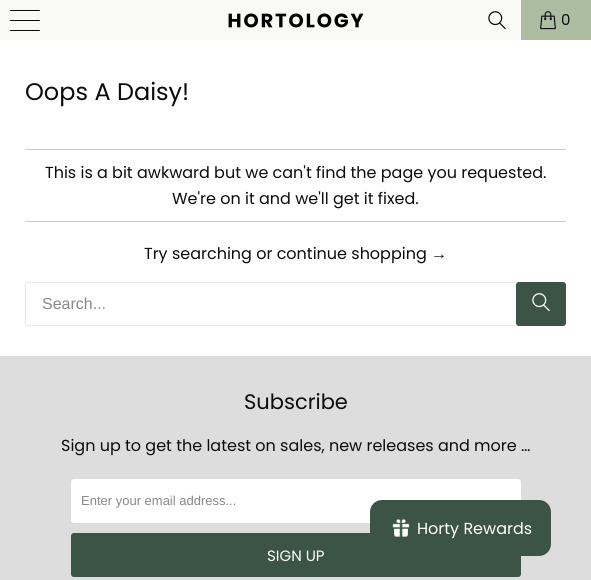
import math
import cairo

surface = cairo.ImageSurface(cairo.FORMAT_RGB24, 591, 580)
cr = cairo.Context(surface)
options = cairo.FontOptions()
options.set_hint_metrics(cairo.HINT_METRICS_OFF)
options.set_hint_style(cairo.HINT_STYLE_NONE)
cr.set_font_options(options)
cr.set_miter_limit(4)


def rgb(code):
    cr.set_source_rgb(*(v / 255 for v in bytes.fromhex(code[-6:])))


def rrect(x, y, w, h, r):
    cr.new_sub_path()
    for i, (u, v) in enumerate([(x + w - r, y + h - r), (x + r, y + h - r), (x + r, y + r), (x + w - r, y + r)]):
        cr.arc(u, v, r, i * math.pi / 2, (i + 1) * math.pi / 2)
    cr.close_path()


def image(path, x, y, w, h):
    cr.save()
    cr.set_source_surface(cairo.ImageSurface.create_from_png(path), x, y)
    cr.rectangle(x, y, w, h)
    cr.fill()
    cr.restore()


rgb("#ffffff")
cr.paint()
rgb("#f9faf7")
cr.rectangle(0, 0, 521, 40)
cr.fill()
rgb("#0c0c0c")
rrect(10, 10, 30, 1, 0.5)
cr.fill()
rrect(10, 20, 30, 1, 0.5)
cr.fill()
rrect(10, 30, 30, 1, 0.5)
cr.fill()
image("img/1.png", 228, 13, 136, 15)
image("img/2.png", 488, 11, 18, 19)
rgb("#acbda1")
cr.rectangle(521, 0, 70, 40)
cr.fill()
image("img/3.png", 540, 11, 16, 19)
rgb("#d0cac0")
cr.rectangle(25, 149, 541, 1)
cr.fill()
cr.rectangle(25, 221, 541, 1)
cr.fill()
rrect(25.5, 282.5, 540, 43, 2.5)
rgb("#e7ebe3")
cr.set_line_width(1)
cr.stroke()
rgb("#3c5445")
rrect(516, 282, 50, 44, 3)
cr.fill()
image("img/4.png", 532, 293, 18, 19)
rgb("#dddddd")
cr.rectangle(0, 356, 591, 224)
cr.fill()
rgb("#ffffff")
rrect(71, 479, 450, 44, 3)
cr.fill()
rgb("#3c5445")
rrect(71.5, 533.5, 449, 43, 2.5)
cr.fill_preserve()
cr.stroke()
rrect(370, 500, 181, 56, 12)
cr.fill()
image("img/5.png", 392, 519, 18, 18)
cr.select_font_face("Poppins")
cr.set_font_size(15)
rgb("#0c0c0c")
cr.move_to(561, 25)
cr.show_text("0")
cr.set_font_size(24)
cr.move_to(25, 100)
cr.show_text("Oops A Daisy!")
cr.set_font_size(16)
for x, y, s in [
    (45, 178, "This is a bit awkward but we can't find the page you requested."),
    (172, 204, "We're on it and we'll get it fixed."),
    (144, 259, "Try searching or continue shopping"),
]:
    cr.move_to(x, y)
    cr.show_text(s)
cr.select_font_face("Liberation Sans")
cr.move_to(431, 259)
cr.show_text("→")
rgb("#888888")
cr.move_to(42, 309)
cr.show_text("Search...")
cr.select_font_face("Poppins")
cr.set_font_size(21)
rgb("#0c0c0c")
cr.move_to(244, 409)
cr.show_text("Subscribe")
cr.set_font_size(16)
cr.move_to(61, 451)
cr.show_text("Sign up to get the latest on sales, new releases and more …")
cr.select_font_face("Liberation Sans")
cr.set_font_size(13)
rgb("#888888")
cr.move_to(81, 505)
cr.show_text("Enter your email address...")
cr.select_font_face("Poppins")
cr.set_font_size(15)
rgb("#ffffff")
cr.move_to(267, 561)
cr.show_text("SIGN UP")
cr.set_font_size(16)
cr.move_to(417, 534)
cr.show_text("Horty Rewards")
surface.write_to_png("page.png")
